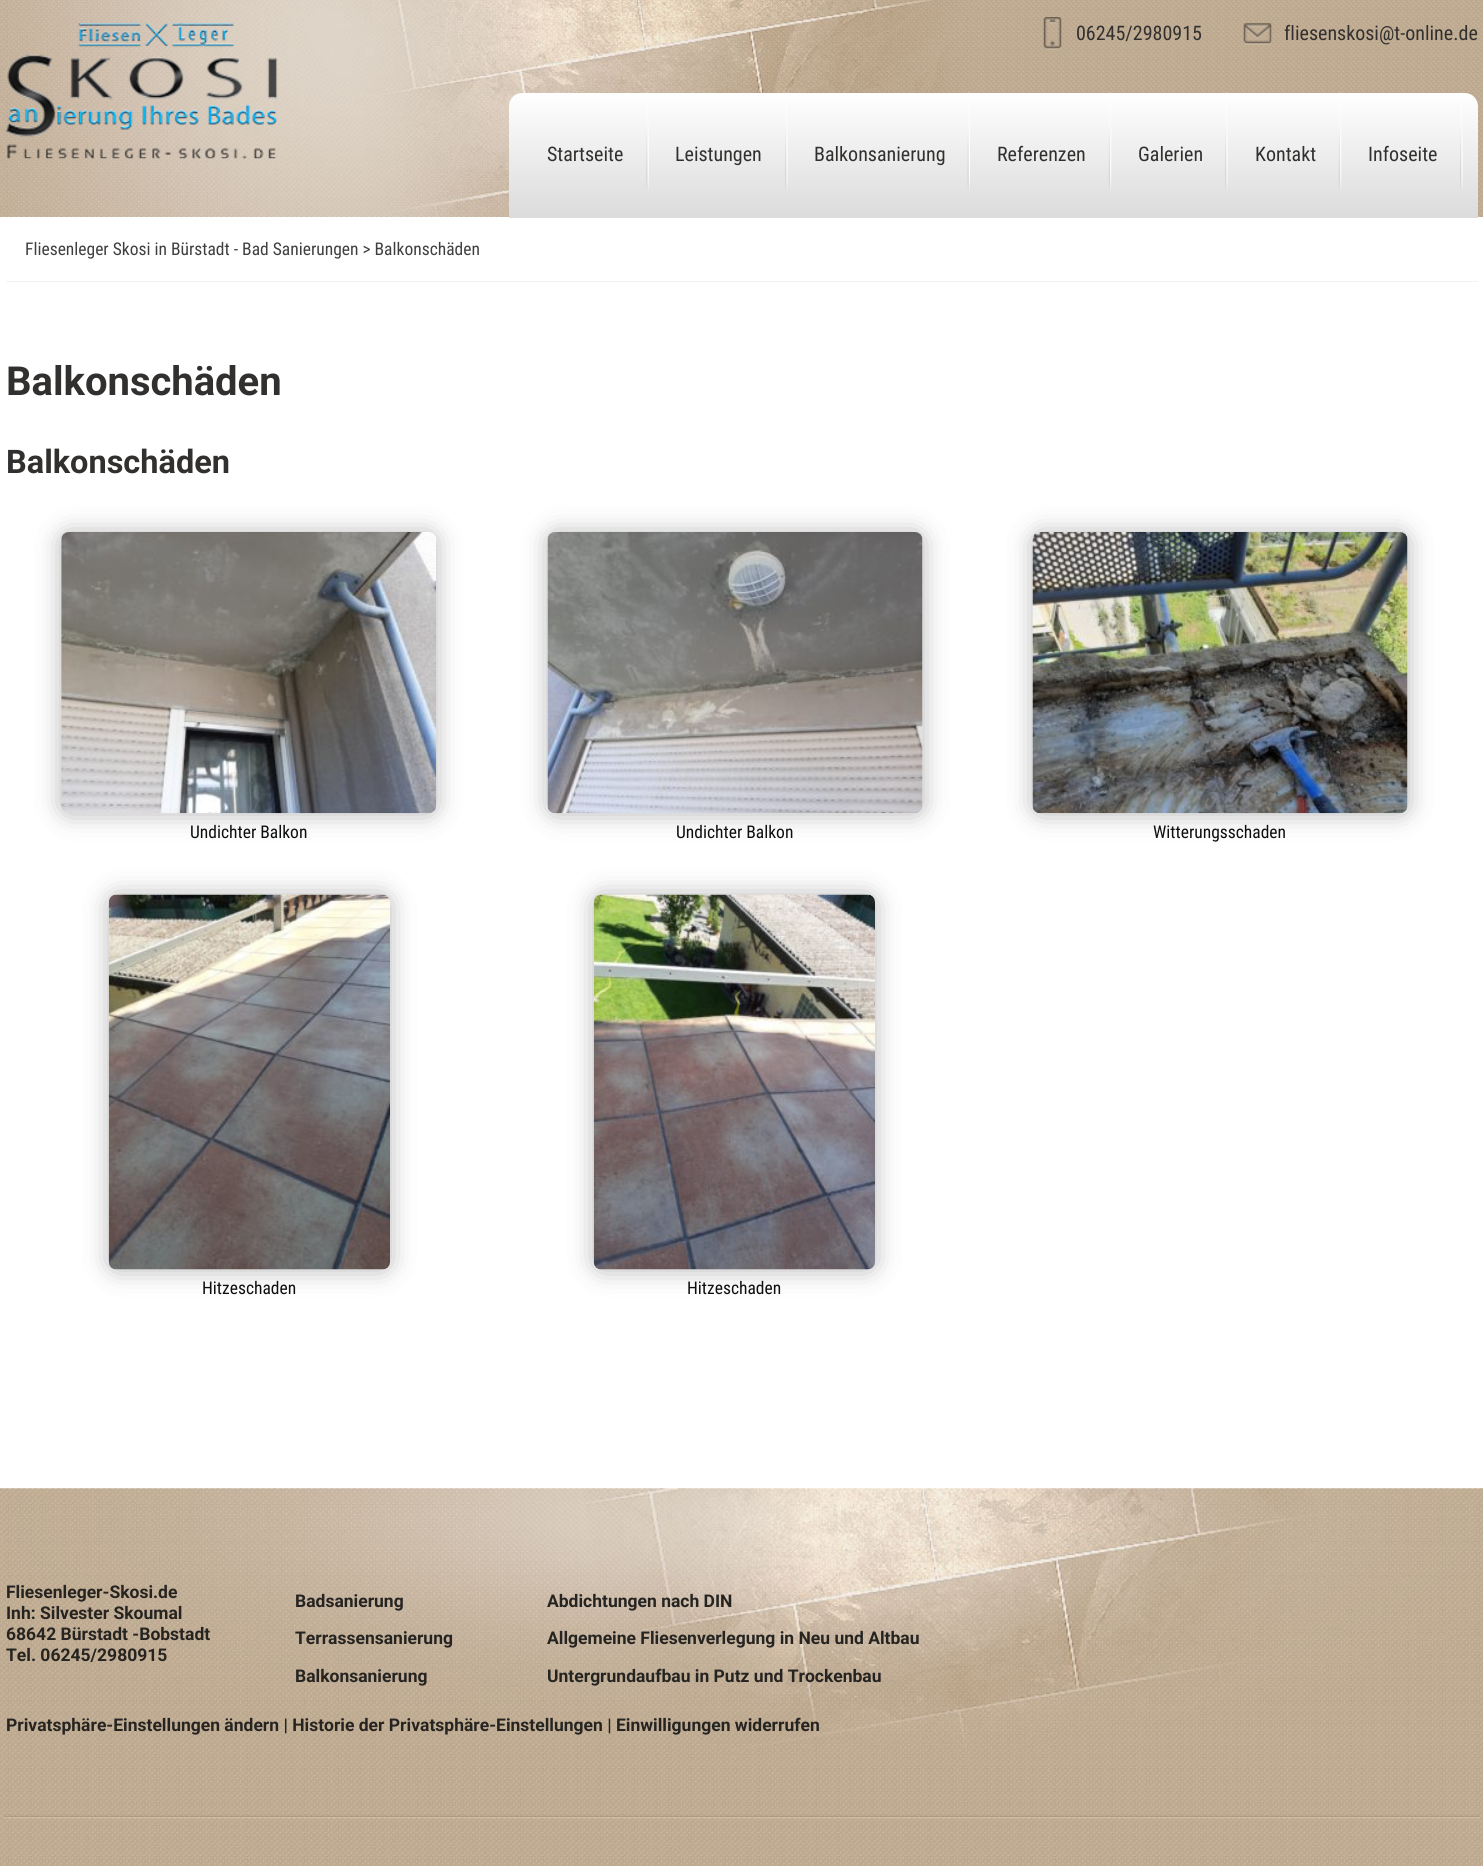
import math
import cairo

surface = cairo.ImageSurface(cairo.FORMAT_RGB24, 1483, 1866)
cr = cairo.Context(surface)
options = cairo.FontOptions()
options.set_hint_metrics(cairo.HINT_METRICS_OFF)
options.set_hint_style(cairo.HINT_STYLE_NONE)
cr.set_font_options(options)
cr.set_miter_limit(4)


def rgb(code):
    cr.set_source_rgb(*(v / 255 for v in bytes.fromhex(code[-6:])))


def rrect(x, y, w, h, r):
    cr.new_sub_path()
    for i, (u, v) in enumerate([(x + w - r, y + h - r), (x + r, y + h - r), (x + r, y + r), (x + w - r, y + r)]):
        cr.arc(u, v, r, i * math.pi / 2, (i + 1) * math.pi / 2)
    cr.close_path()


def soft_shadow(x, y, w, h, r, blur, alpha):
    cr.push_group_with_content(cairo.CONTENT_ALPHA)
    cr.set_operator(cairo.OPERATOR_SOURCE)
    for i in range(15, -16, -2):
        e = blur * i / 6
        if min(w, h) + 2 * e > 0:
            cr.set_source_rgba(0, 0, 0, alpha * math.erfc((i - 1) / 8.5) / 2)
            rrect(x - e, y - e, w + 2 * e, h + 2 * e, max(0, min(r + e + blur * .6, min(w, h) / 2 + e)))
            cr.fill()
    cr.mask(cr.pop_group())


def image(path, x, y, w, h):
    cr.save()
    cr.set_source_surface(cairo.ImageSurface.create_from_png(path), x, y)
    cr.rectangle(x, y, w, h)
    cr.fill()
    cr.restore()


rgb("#ffffff")
cr.paint()
image("img/1.png", 0, 0, 1483, 217)
image("img/2.png", 6, 23, 272, 136)
image("img/3.png", 1043, 17, 19, 33)
image("img/4.png", 1243, 23, 29, 22)
gradient = cairo.LinearGradient(993, 92, 993, 218)
gradient.add_color_stop_rgba(0, 1, 1, 1, 1)
gradient.add_color_stop_rgba(1, 0.863, 0.859, 0.859, 1)
cr.set_source(gradient)
cr.new_path()
cr.move_to(522, 93)
cr.line_to(1465, 93)
cr.curve_to(1472, 93, 1478, 99, 1478, 106)
cr.line_to(1478, 218)
cr.line_to(509, 218)
cr.line_to(509, 106)
cr.curve_to(509, 99, 515, 93, 522, 93)
cr.close_path()
cr.fill()
image("img/5.png", 646, 92, 3, 98)
image("img/6.png", 785, 92, 3, 97)
image("img/7.png", 967, 92, 3, 98)
image("img/8.png", 1108, 92, 4, 98)
image("img/9.png", 1225, 92, 3, 97)
image("img/8.png", 1338, 92, 4, 98)
image("img/10.png", 1460, 92, 3, 97)
rgb("#f2f2f2")
cr.rectangle(6, 281, 1472, 1)
cr.fill()
rgb("#323232")
soft_shadow(61, 533, 375, 281, 8, 12.5, 0.35)
image("img/11.png", 61, 532, 376, 282)
soft_shadow(548, 533, 375, 281, 8, 12.5, 0.35)
image("img/12.png", 547, 532, 376, 282)
soft_shadow(1033, 533, 375, 281, 8, 12.5, 0.35)
image("img/13.png", 1032, 532, 376, 282)
soft_shadow(109, 895, 281, 375, 8, 12.5, 0.35)
image("img/14.png", 108, 894, 282, 376)
soft_shadow(594, 895, 281, 375, 8, 12.5, 0.35)
image("img/15.png", 593, 894, 282, 376)
image("img/16.png", 0, 1488, 1483, 378)
image("img/17.png", 5, 1815, 1475, 4)
cr.select_font_face("Roboto Condensed")
cr.set_font_size(20)
rgb("#31302f")
for x, y, s in [
    (1076, 40, "06245/2980915"),
    (1284, 40, "fliesenskosi@t-online.de"),
    (547, 161, "Startseite"),
    (675, 161, "Leistungen"),
    (814, 161, "Balkonsanierung"),
    (997, 161, "Referenzen"),
    (1138, 161, "Galerien"),
    (1255, 161, "Kontakt"),
    (1368, 161, "Infoseite"),
]:
    cr.move_to(x, y)
    cr.show_text(s)
cr.set_font_size(17.5)
rgb("#3f3f3f")
cr.move_to(25, 255)
cr.show_text("Fliesenleger Skosi in Bürstadt - Bad Sanierungen > Balkonschäden")
cr.select_font_face("Roboto", cairo.FONT_SLANT_NORMAL, cairo.FONT_WEIGHT_BOLD)
cr.set_font_size(40)
rgb("#31302f")
cr.move_to(6, 395)
cr.show_text("Balkonschäden")
cr.set_font_size(32.5)
cr.move_to(6, 473)
cr.show_text("Balkonschäden")
cr.select_font_face("Roboto Condensed")
cr.set_font_size(17.5)
rgb("#0d0e0e")
for x, y, s in [
    (190, 838, "Undichter Balkon"),
    (676, 838, "Undichter Balkon"),
    (1153, 838, "Witterungsschaden"),
    (202, 1294, "Hitzeschaden"),
    (687, 1294, "Hitzeschaden"),
]:
    cr.move_to(x, y)
    cr.show_text(s)
cr.select_font_face("Roboto", cairo.FONT_SLANT_NORMAL, cairo.FONT_WEIGHT_BOLD)
rgb("#262421")
for x, y, s in [
    (6, 1598, "Fliesenleger-Skosi.de"),
    (6, 1619, "Inh: Silvester Skoumal"),
    (6, 1640, "68642 Bürstadt -Bobstadt"),
    (6, 1661, "Tel. 06245/2980915"),
    (295, 1607, "Badsanierung"),
    (295, 1644, "Terrassensanierung"),
    (295, 1682, "Balkonsanierung"),
    (547, 1607, "Abdichtungen nach DIN"),
    (547, 1644, "Allgemeine Fliesenverlegung in Neu und Altbau"),
    (547, 1682, "Untergrundaufbau in Putz und Trockenbau"),
    (6, 1731, "Privatsphäre-Einstellungen ändern | Historie der Privatsphäre-Einstellungen | Einwilligungen widerrufen"),
]:
    cr.move_to(x, y)
    cr.show_text(s)
surface.write_to_png("page.png")
